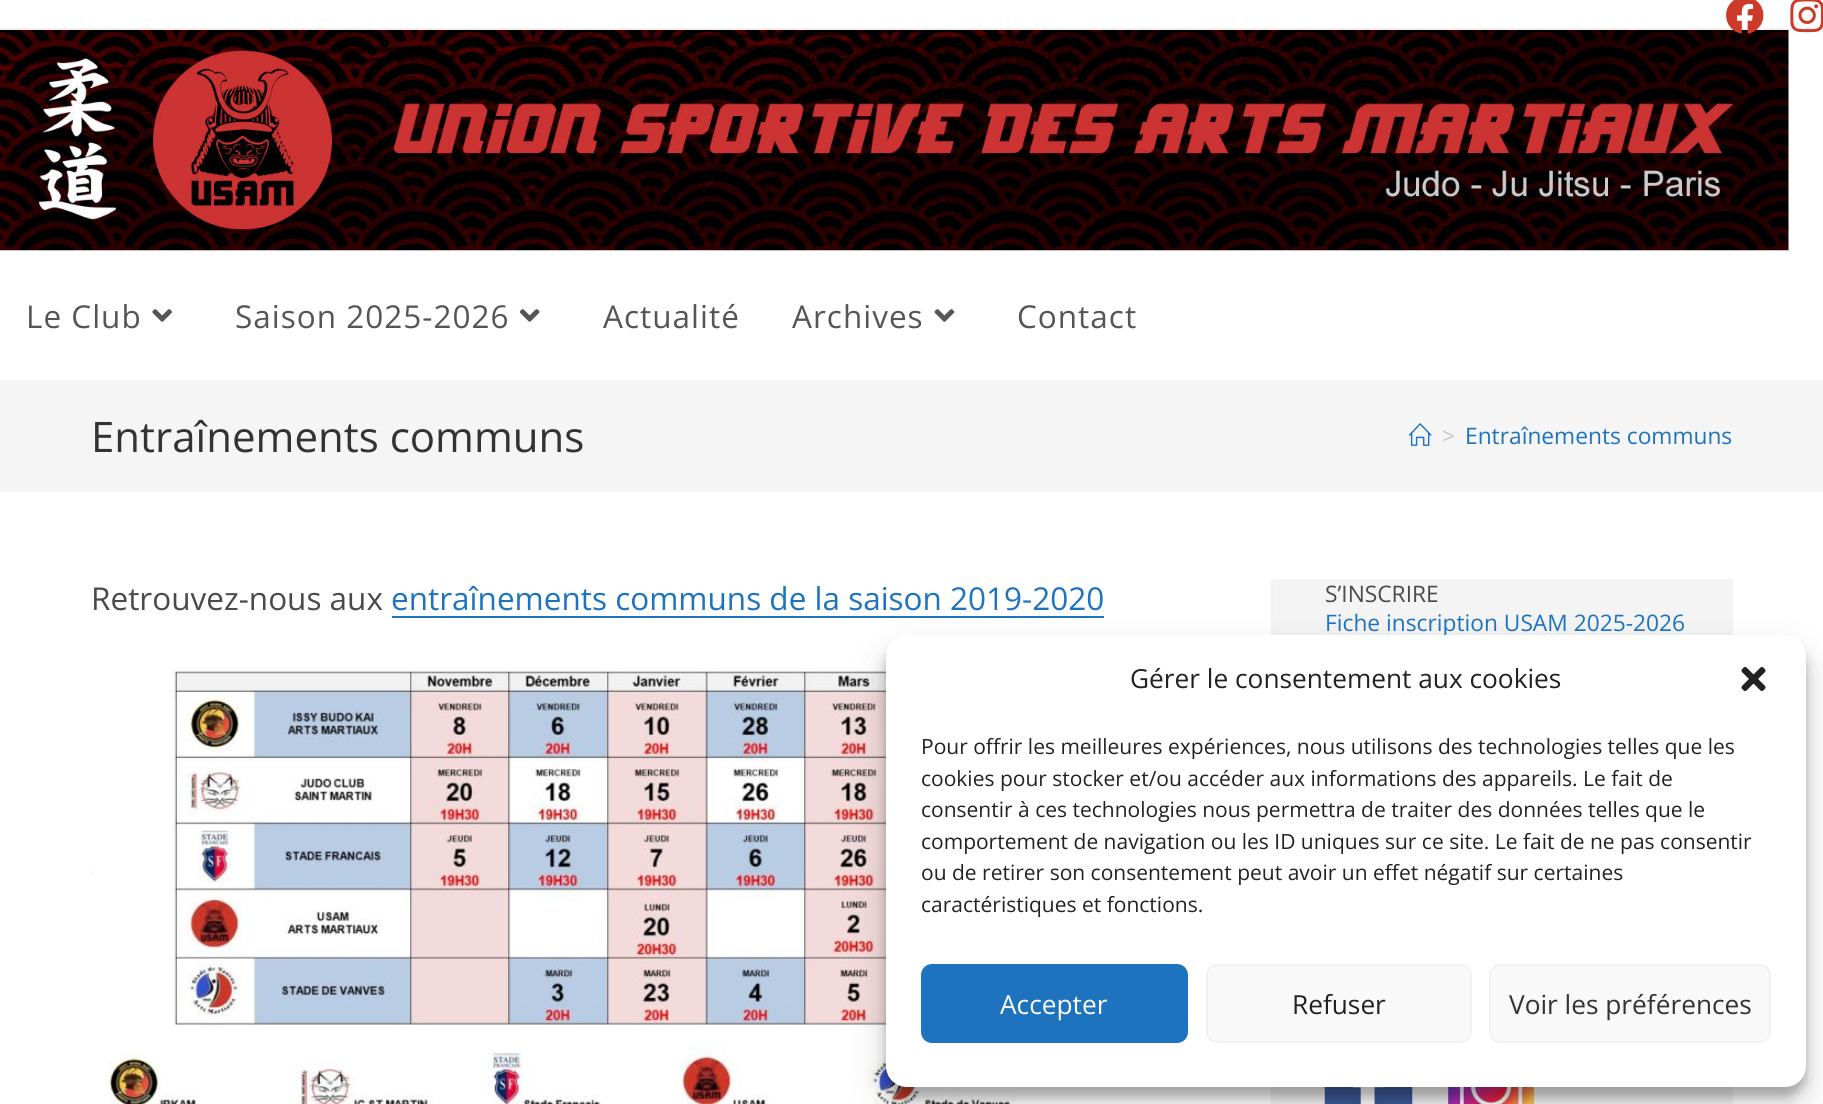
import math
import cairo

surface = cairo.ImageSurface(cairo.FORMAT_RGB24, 1823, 1104)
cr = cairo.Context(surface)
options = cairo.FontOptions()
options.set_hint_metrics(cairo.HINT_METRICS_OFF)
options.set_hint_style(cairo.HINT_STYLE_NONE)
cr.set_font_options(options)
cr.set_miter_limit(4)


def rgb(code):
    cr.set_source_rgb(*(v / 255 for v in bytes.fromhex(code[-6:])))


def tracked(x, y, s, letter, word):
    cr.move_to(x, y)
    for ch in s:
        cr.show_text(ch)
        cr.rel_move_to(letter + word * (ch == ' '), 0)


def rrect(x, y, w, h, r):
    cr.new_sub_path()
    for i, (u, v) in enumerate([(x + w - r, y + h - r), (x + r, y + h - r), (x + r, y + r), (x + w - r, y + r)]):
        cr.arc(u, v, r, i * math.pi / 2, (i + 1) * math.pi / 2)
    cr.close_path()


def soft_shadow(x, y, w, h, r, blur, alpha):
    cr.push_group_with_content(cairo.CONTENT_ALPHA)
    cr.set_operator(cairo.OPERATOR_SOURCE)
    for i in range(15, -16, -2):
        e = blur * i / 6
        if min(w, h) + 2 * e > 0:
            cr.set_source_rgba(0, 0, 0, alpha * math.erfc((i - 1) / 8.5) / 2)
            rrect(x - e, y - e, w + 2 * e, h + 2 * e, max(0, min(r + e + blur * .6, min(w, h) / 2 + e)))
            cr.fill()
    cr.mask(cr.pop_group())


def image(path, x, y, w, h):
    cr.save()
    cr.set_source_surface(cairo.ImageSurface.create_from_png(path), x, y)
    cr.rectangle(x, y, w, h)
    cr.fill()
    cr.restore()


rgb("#ffffff")
cr.paint()
rgb("#f1f1f1")
cr.rectangle(0, 28, 1823, 2)
cr.fill()
image("img/3.png", 0, 30, 1789, 221)
image("img/1.png", 1726, 0, 38, 34)
image("img/2.png", 1790, 0, 33, 33)
image("img/4.png", 152, 309, 20, 13)
image("img/5.png", 519, 309, 21, 13)
image("img/6.png", 934, 309, 21, 13)
rgb("#f5f5f5")
cr.rectangle(0, 380, 1823, 112)
cr.fill()
image("img/7.png", 1409, 423, 23, 23)
rgb("#f1f1f1")
cr.rectangle(1271, 579, 2, 525)
cr.fill()
rgb("#1e73be")
cr.rectangle(392, 616, 712, 2)
cr.fill()
image("img/8.png", 91, 670, 1111, 434)
rgb("#f4f4f4")
cr.rectangle(1273, 579, 460, 525)
cr.fill()
image("img/9.png", 1324, 1087, 89, 17)
image("img/10.png", 1447, 1087, 88, 17)
rgb("#000000")
soft_shadow(886, 646, 920, 451, 21, 5, 0.23)
soft_shadow(886, 653, 920, 451, 21, 17.5, 0.19)
cr.select_font_face("Open Sans")
cr.set_font_size(31.5)
rgb("#555555")
for x, y, s in [
    (26, 328, "Le Club"),
    (235, 328, "Saison 2025-2026"),
    (603, 328, "Actualité"),
    (792, 328, "Archives"),
    (1017, 328, "Contact"),
]:
    tracked(x, y, s, 1, 0)
cr.set_font_size(42)
rgb("#333333")
cr.move_to(91, 452)
cr.show_text("Entraînements communs")
cr.set_font_size(22.75)
rgb("#c6c6c6")
cr.move_to(1442, 444)
cr.show_text(">")
rgb("#1e73be")
cr.move_to(1465, 444)
cr.show_text("Entraînements communs")
cr.set_font_size(31.5)
rgb("#4a4a4a")
cr.move_to(91, 610)
cr.show_text("Retrouvez-nous aux")
rgb("#1e73be")
cr.move_to(391, 610)
cr.show_text("entraînements communs de la saison 2019-2020")
cr.set_font_size(22.75)
rgb("#4a4a4a")
cr.move_to(1325, 602)
cr.show_text("S’INSCRIRE")
rgb("#1e73be")
cr.move_to(1325, 631)
cr.show_text("Fiche inscription USAM 2025-2026")
rgb("#ffffff")
rrect(886, 635, 920, 452, 21)
cr.fill()
cr.set_font_size(26.25)
rgb("#222222")
cr.move_to(1130, 688)
cr.show_text("Gérer le consentement aux cookies")
image("img/11.png", 1741, 667, 25, 24)
cr.set_font_size(21)
for x, y, s in [
    (921, 754, "Pour offrir les meilleures expériences, nous utilisons des technologies telles que les"),
    (921, 786, "cookies pour stocker et/ou accéder aux informations des appareils. Le fait de"),
    (921, 817, "consentir à ces technologies nous permettra de traiter des données telles que le"),
    (921, 849, "comportement de navigation ou les ID uniques sur ce site. Le fait de ne pas consentir"),
    (921, 880, "ou de retirer son consentement peut avoir un effet négatif sur certaines"),
    (921, 912, "caractéristiques et fonctions."),
]:
    cr.move_to(x, y)
    cr.show_text(s)
rgb("#1e73be")
rrect(922, 965, 265, 77, 10)
cr.fill_preserve()
cr.stroke()
cr.set_font_size(26.25)
rgb("#ffffff")
cr.move_to(1000, 1014)
cr.show_text("Accepter")
rgb("#f9f9f9")
rrect(1207, 965, 264, 77, 10)
cr.fill_preserve()
rgb("#f2f2f2")
cr.stroke()
rgb("#222222")
cr.move_to(1292, 1014)
cr.show_text("Refuser")
rgb("#f9f9f9")
rrect(1490, 965, 280, 77, 10)
cr.fill_preserve()
rgb("#f2f2f2")
cr.stroke()
rgb("#333333")
cr.move_to(1509, 1014)
cr.show_text("Voir les préférences")
surface.write_to_png("page.png")
